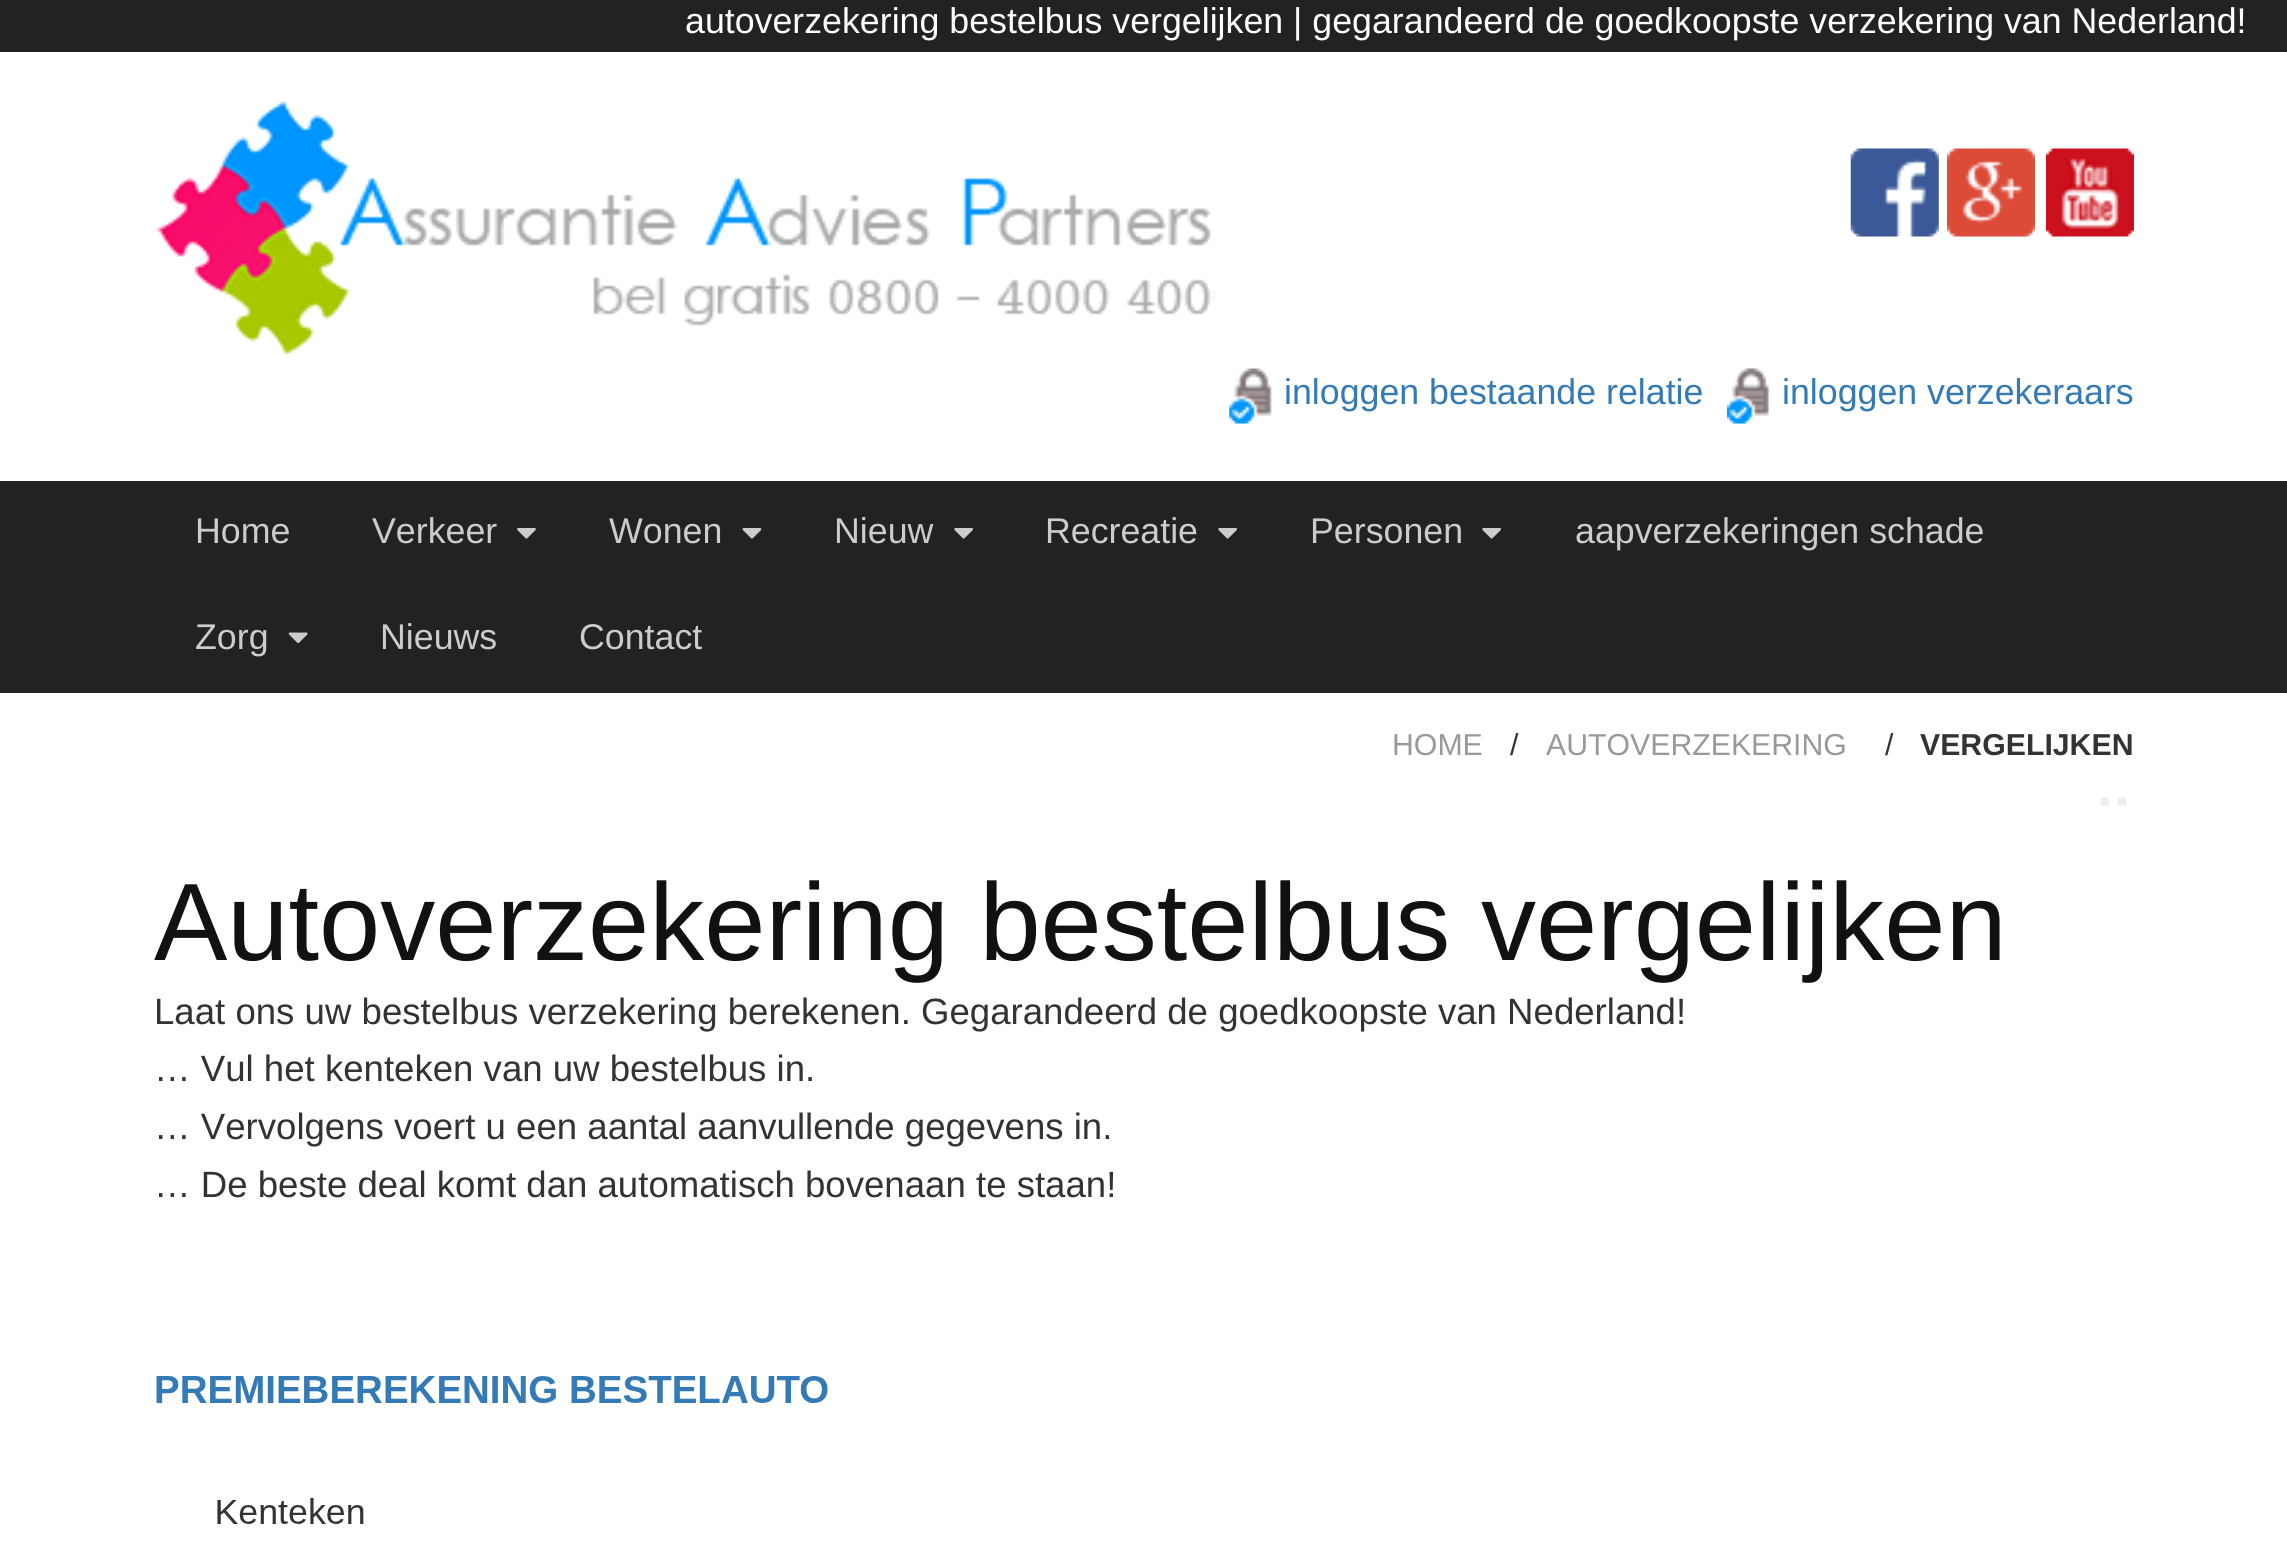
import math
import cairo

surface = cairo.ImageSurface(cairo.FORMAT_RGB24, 2287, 1548)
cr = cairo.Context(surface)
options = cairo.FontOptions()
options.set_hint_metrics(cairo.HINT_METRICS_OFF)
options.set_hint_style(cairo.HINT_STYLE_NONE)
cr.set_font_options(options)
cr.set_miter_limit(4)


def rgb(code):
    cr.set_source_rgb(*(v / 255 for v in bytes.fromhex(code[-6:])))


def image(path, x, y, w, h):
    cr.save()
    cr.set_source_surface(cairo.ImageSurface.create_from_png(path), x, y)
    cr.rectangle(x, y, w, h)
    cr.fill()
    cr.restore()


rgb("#ffffff")
cr.paint()
rgb("#222222")
cr.rectangle(0, 0, 2287, 52)
cr.fill()
image("img/1.png", 156, 101, 1060, 255)
image("img/2.png", 1850, 148, 89, 89)
image("img/3.png", 1947, 148, 88, 89)
image("img/4.png", 2046, 148, 88, 89)
image("img/5.png", 1229, 368, 43, 56)
image("img/6.png", 1727, 368, 43, 56)
cr.rectangle(0, 481, 2287, 212)
cr.fill()
image("img/7.png", 517, 528, 19, 11)
image("img/8.png", 742, 528, 20, 11)
image("img/9.png", 954, 528, 20, 11)
image("img/9.png", 1218, 528, 20, 11)
image("img/9.png", 1482, 528, 20, 11)
image("img/10.png", 288, 632, 20, 12)
cr.new_path()
cr.move_to(2101, 801.5)
cr.line_to(2109, 801.5)
cr.move_to(2117.5, 801.5)
cr.line_to(2126, 801.5)
rgb("#eeeeee")
cr.set_line_width(8.2)
cr.stroke()
image("img/11.png", 156, 1376, 672, 148)
cr.select_font_face("Liberation Sans")
cr.set_font_size(35.75)
rgb("#ffffff")
cr.move_to(685, 33)
cr.show_text("autoverzekering bestelbus vergelijken | gegarandeerd de goedkoopste verzekering van Nederland!")
rgb("#337ab7")
cr.move_to(1284, 404)
cr.show_text("inloggen bestaande relatie")
cr.move_to(1782, 404)
cr.show_text("inloggen verzekeraars")
rgb("#cccccc")
for x, y, s in [
    (195, 543, "Home"),
    (372, 543, "Verkeer"),
    (609, 543, "Wonen"),
    (834, 543, "Nieuw"),
    (1045, 543, "Recreatie"),
    (1310, 543, "Personen"),
    (1575, 543, "aapverzekeringen schade"),
    (195, 649, "Zorg"),
    (380, 649, "Nieuws"),
    (579, 649, "Contact"),
]:
    cr.move_to(x, y)
    cr.show_text(s)
cr.set_font_size(30.25)
rgb("#999999")
cr.move_to(1392, 755)
cr.show_text("HOME")
rgb("#333333")
cr.move_to(1510, 755)
cr.show_text("/")
rgb("#999999")
cr.move_to(1546, 755)
cr.show_text("AUTOVERZEKERING")
rgb("#333333")
cr.move_to(1885, 755)
cr.show_text("/")
cr.select_font_face("Liberation Sans", cairo.FONT_SLANT_NORMAL, cairo.FONT_WEIGHT_BOLD)
cr.move_to(1920, 755)
cr.show_text("VERGELIJKEN")
cr.select_font_face("Liberation Sans")
cr.set_font_size(110)
rgb("#111111")
cr.move_to(154, 960)
cr.show_text("Autoverzekering bestelbus vergelijken")
cr.set_font_size(36.6)
rgb("#333333")
for x, y, s in [
    (154, 1024, "Laat ons uw bestelbus verzekering berekenen. Gegarandeerd de goedkoopste van Nederland!"),
    (154, 1081, "… Vul het kenteken van uw bestelbus in."),
    (154, 1139, "… Vervolgens voert u een aantal aanvullende gegevens in."),
    (154, 1197, "… De beste deal komt dan automatisch bovenaan te staan!"),
]:
    cr.move_to(x, y)
    cr.show_text(s)
surface.write_to_png("page.png")
